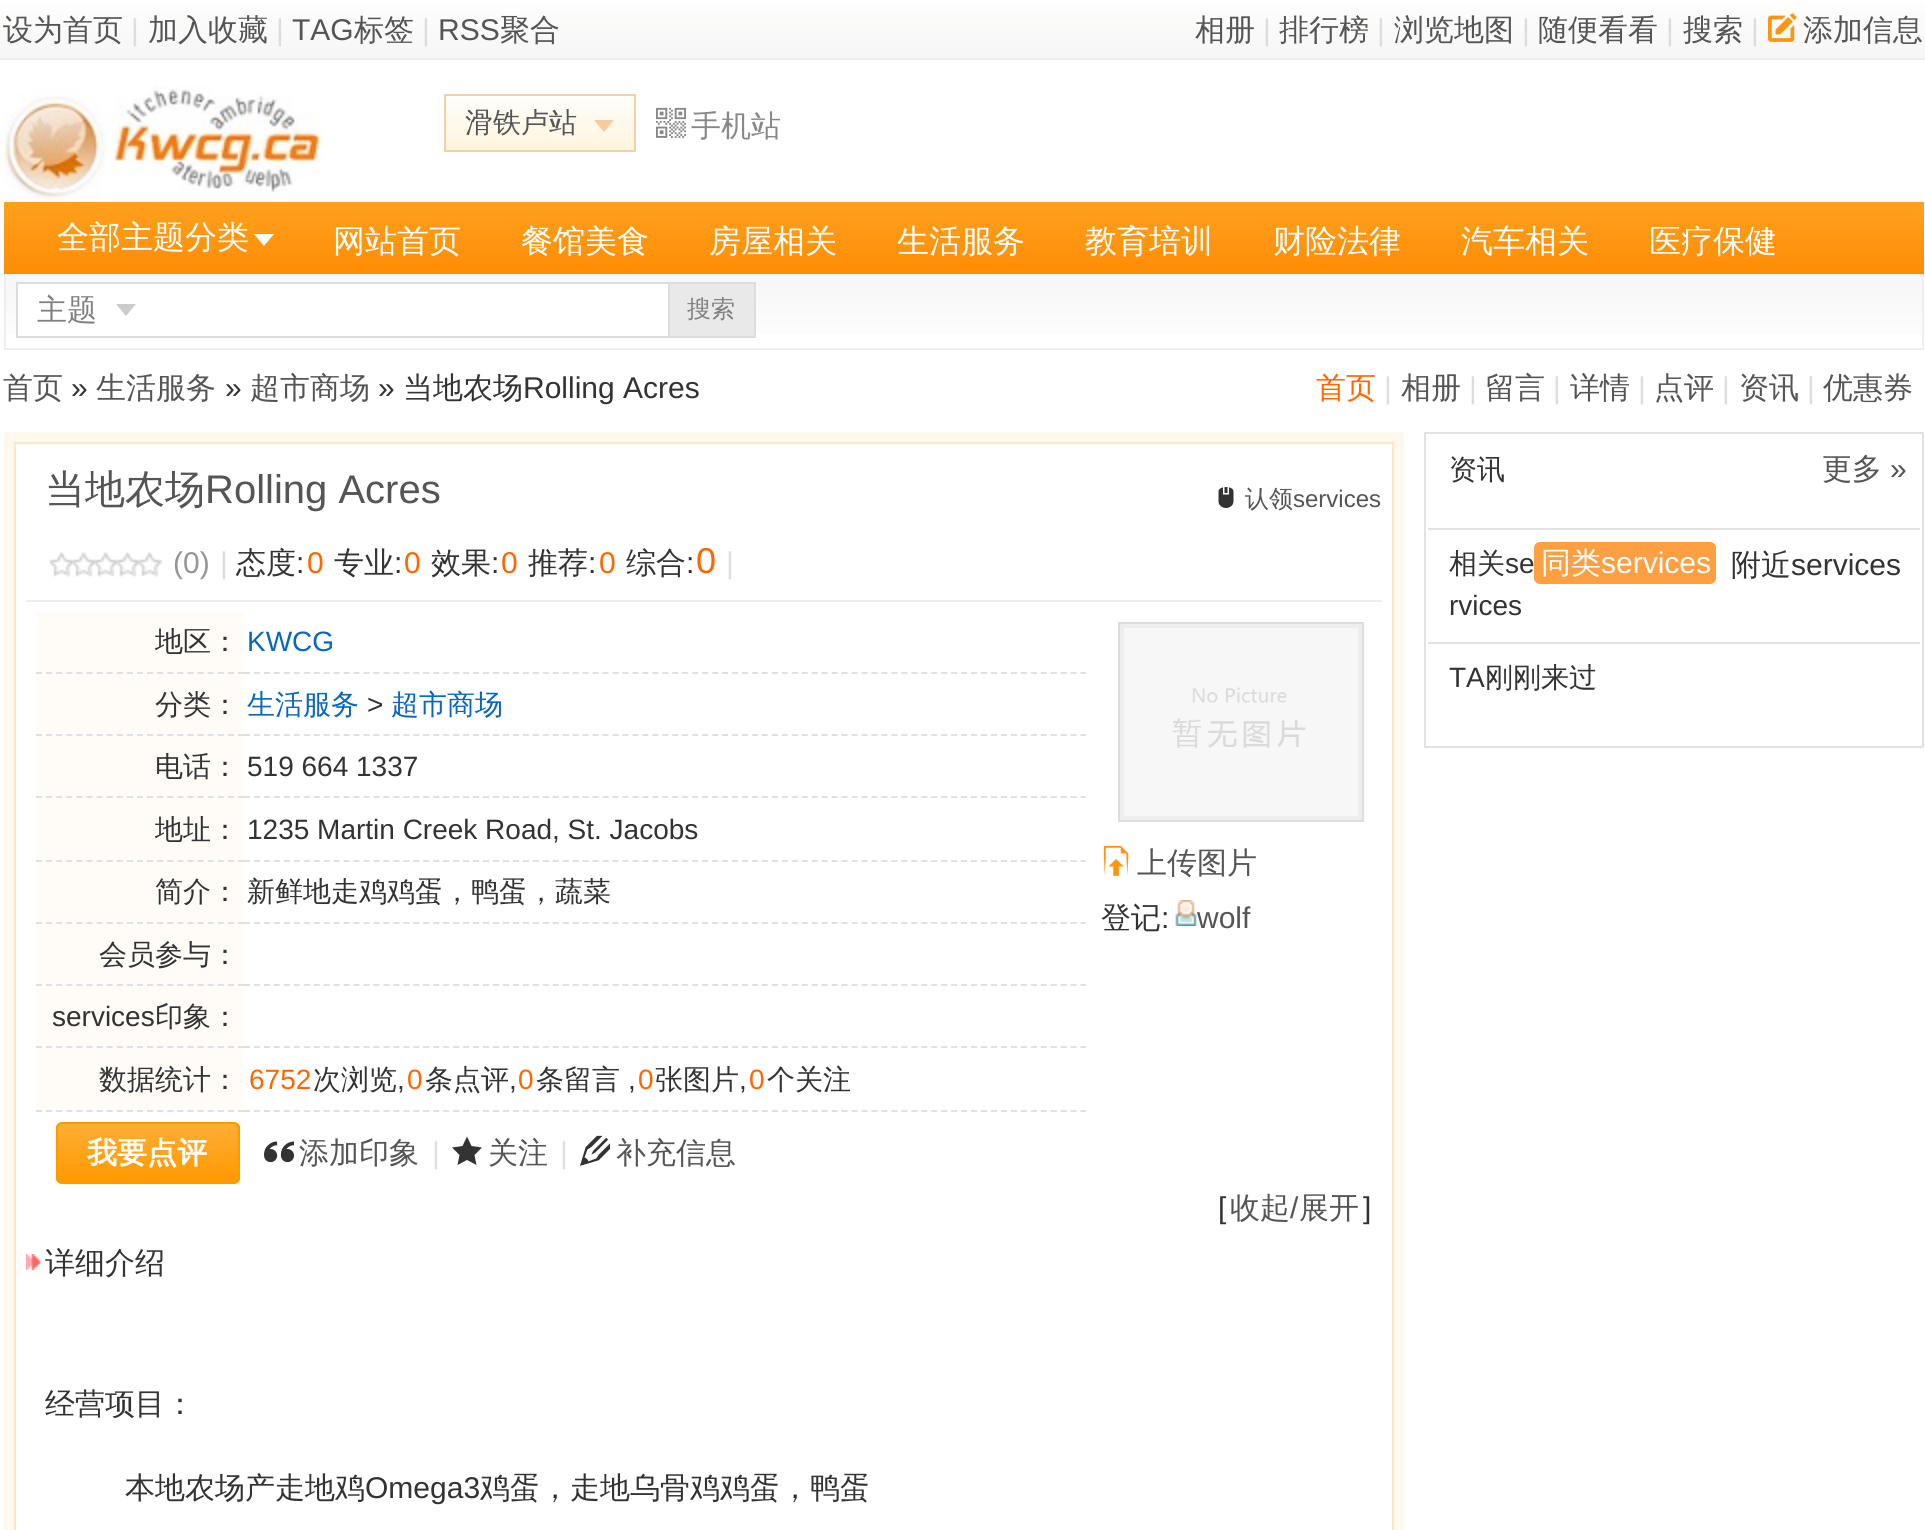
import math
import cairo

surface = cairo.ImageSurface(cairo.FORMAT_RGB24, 1925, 1530)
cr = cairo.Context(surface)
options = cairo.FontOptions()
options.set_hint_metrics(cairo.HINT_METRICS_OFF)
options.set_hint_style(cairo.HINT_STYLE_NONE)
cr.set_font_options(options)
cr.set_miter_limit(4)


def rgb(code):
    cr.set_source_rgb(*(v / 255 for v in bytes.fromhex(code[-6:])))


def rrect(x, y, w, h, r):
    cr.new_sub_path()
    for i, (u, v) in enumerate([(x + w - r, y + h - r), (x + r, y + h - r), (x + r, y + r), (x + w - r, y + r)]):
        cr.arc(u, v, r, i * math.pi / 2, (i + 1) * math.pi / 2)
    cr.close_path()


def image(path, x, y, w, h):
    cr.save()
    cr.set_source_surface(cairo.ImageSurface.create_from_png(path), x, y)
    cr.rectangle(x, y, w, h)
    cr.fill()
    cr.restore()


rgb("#ffffff")
cr.paint()
gradient = cairo.LinearGradient(963, 58, 963, 0)
gradient.add_color_stop_rgba(0, 0.965, 0.965, 0.965, 1)
gradient.add_color_stop_rgba(1, 0.996, 0.996, 0.992, 1)
cr.set_source(gradient)
cr.rectangle(0, 4, 1925, 54)
cr.fill()
rgb("#eeeeee")
cr.rectangle(0, 58, 1925, 2)
cr.fill()
image("img/1.png", 1768, 13, 29, 29)
image("img/2.png", 4, 86, 320, 115)
gradient = cairo.LinearGradient(540, 150, 540, 96)
gradient.add_color_stop_rgba(0, 1, 0.957, 0.867, 1)
gradient.add_color_stop_rgba(1, 1, 0.996, 0.984, 1)
cr.set_source(gradient)
cr.rectangle(446, 96, 188, 54)
cr.fill()
cr.rectangle(445, 95, 190, 56)
rgb("#f8cfa5")
cr.stroke()
rgb("#f8ca9c")
cr.new_path()
cr.move_to(594, 120)
cr.line_to(614, 120)
cr.line_to(604, 132)
cr.close_path()
cr.fill()
image("img/3.png", 656, 107, 30, 31)
gradient = cairo.LinearGradient(964, 274, 964, 202)
gradient.add_color_stop_rgba(0, 1, 0.549, 0.016, 1)
gradient.add_color_stop_rgba(1, 1, 0.631, 0.118, 1)
cr.set_source(gradient)
cr.rectangle(4, 202, 1920, 72)
cr.fill()
rgb("#ffffff")
cr.new_path()
cr.move_to(254, 234)
cr.line_to(274, 234)
cr.line_to(264, 246)
cr.close_path()
cr.fill()
gradient = cairo.LinearGradient(964, 348, 964, 274)
gradient.add_color_stop_rgba(0, 0.996, 0.996, 0.996, 1)
gradient.add_color_stop_rgba(1, 0.965, 0.965, 0.965, 1)
cr.set_source(gradient)
cr.rectangle(6, 274, 1916, 60)
cr.fill()
for x, y, w, h, color in [
    (1922, 274, 2, 76, "#eeeeee"),
    (4, 348, 1920, 2, "#eeeeee"),
    (4, 274, 2, 76, "#eeeeee"),
    (18, 284, 650, 50, "#ffffff"),
    (16, 282, 740, 2, "#dddddd"),
    (668, 282, 2, 56, "#dddddd"),
    (16, 336, 654, 2, "#dddddd"),
    (16, 282, 2, 56, "#dddddd"),
]:
    rgb(color)
    cr.rectangle(x, y, w, h)
    cr.fill()
rgb("#cccccc")
cr.new_path()
cr.move_to(116, 304)
cr.line_to(136, 304)
cr.line_to(126, 316)
cr.close_path()
cr.fill()
for x, y, w, h, color in [
    (670, 284, 84, 52, "#e9e9e9"),
    (754, 282, 2, 56, "#dddddd"),
    (670, 336, 86, 2, "#dddddd"),
]:
    rgb(color)
    cr.rectangle(x, y, w, h)
    cr.fill()
cr.rectangle(9, 437, 1390, 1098)
rgb("#fff8ec")
cr.set_line_width(10)
cr.stroke()
cr.rectangle(15, 443, 1378, 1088)
rgb("#ffe4ca")
cr.set_line_width(2)
cr.stroke()
image("img/4.png", 1218, 487, 16, 21)
rgb("#eeeeee")
cr.rectangle(26, 600, 1356, 2)
cr.fill()
image("img/5.png", 49, 551, 113, 26)
rgb("#fffbf7")
cr.rectangle(36, 612, 208, 500)
cr.fill()
cr.new_path()
cr.move_to(36, 673)
cr.line_to(244, 673)
rgb("#e1e1e1")
cr.set_dash([6, 4.1])
cr.stroke()
cr.new_path()
cr.move_to(244, 673)
cr.line_to(1086, 673)
cr.set_dash([6, 3.96])
cr.stroke()
cr.new_path()
cr.move_to(36, 735)
cr.line_to(244, 735)
cr.set_dash([6, 4.1])
cr.stroke()
cr.new_path()
cr.move_to(244, 735)
cr.line_to(1086, 735)
cr.set_dash([6, 3.96])
cr.stroke()
cr.new_path()
cr.move_to(36, 797)
cr.line_to(244, 797)
cr.set_dash([6, 4.1])
cr.stroke()
cr.new_path()
cr.move_to(244, 797)
cr.line_to(1086, 797)
cr.set_dash([6, 3.96])
cr.stroke()
cr.new_path()
cr.move_to(36, 861)
cr.line_to(244, 861)
cr.set_dash([6, 4.1])
cr.stroke()
cr.new_path()
cr.move_to(244, 861)
cr.line_to(1086, 861)
cr.set_dash([6, 3.96])
cr.stroke()
cr.new_path()
cr.move_to(36, 923)
cr.line_to(244, 923)
cr.set_dash([6, 4.1])
cr.stroke()
cr.new_path()
cr.move_to(244, 923)
cr.line_to(1086, 923)
cr.set_dash([6, 3.96])
cr.stroke()
cr.new_path()
cr.move_to(36, 985)
cr.line_to(244, 985)
cr.set_dash([6, 4.1])
cr.stroke()
cr.new_path()
cr.move_to(244, 985)
cr.line_to(1086, 985)
cr.set_dash([6, 3.96])
cr.stroke()
cr.new_path()
cr.move_to(36, 1047)
cr.line_to(244, 1047)
cr.set_dash([6, 4.1])
cr.stroke()
cr.new_path()
cr.move_to(244, 1047)
cr.line_to(1086, 1047)
cr.set_dash([6, 3.96])
cr.stroke()
cr.new_path()
cr.move_to(36, 1111)
cr.line_to(244, 1111)
cr.set_dash([6, 4.1])
cr.stroke()
cr.new_path()
cr.move_to(244, 1111)
cr.line_to(1086, 1111)
cr.set_dash([6, 3.96])
cr.stroke()
cr.save()
rrect(56, 1122, 184, 62, 6)
cr.clip()
gradient = cairo.LinearGradient(148, 1182, 148, 1124)
gradient.add_color_stop_rgba(0, 1, 0.6, 0, 1)
gradient.add_color_stop_rgba(1, 1, 0.682, 0.208, 1)
cr.set_source(gradient)
cr.rectangle(56, 1124, 184, 58)
cr.fill()
cr.restore()
rrect(57, 1123, 182, 60, 5)
rgb("#ff9900")
cr.set_dash([])
cr.stroke()
image("img/6.png", 264, 1141, 31, 22)
rgb("#333333")
cr.new_path()
cr.move_to(482, 1147.5)
cr.line_to(471.5, 1146)
cr.line_to(467, 1136.5)
cr.line_to(462.5, 1146)
cr.line_to(452, 1147.5)
cr.line_to(459.5, 1155)
cr.line_to(457.5, 1165)
cr.line_to(467, 1160)
cr.line_to(476.5, 1165)
cr.line_to(474.5, 1155)
cr.close_path()
cr.fill()
image("img/7.png", 580, 1135, 30, 31)
rgb("#eeeeee")
cr.rectangle(1119, 623, 244, 198)
cr.fill_preserve()
rgb("#dddddd")
cr.stroke()
image("img/8.png", 1124, 628, 234, 188)
image("img/9.png", 1103, 845, 26, 31)
image("img/10.png", 1175, 900, 22, 26)
image("img/11.png", 26, 1254, 15, 16)
cr.rectangle(1425, 433, 498, 314)
rgb("#e2e2e2")
cr.stroke()
cr.rectangle(1428, 528, 492, 2)
cr.fill()
cr.rectangle(1428, 642, 492, 2)
cr.fill()
rgb("#fe9f41")
rrect(1534, 542, 182, 42, 6)
cr.fill()
cr.select_font_face("WenQuanYi Zen Hei Medium")
cr.set_font_size(30)
rgb("#555555")
cr.move_to(3, 40)
cr.show_text("设为首页")
cr.select_font_face("Liberation Sans")
rgb("#dddddd")
cr.move_to(131, 40)
cr.show_text("|")
cr.select_font_face("WenQuanYi Zen Hei Medium")
rgb("#555555")
cr.move_to(148, 40)
cr.show_text("加入收藏")
cr.select_font_face("Liberation Sans")
rgb("#dddddd")
cr.move_to(276, 40)
cr.show_text("|")
rgb("#555555")
cr.move_to(292, 40)
cr.show_text("TAG")
cr.select_font_face("WenQuanYi Zen Hei Medium")
cr.move_to(354, 40)
cr.show_text("标签")
cr.select_font_face("Liberation Sans")
rgb("#dddddd")
cr.move_to(422, 40)
cr.show_text("|")
rgb("#555555")
cr.move_to(438, 40)
cr.show_text("RSS")
cr.select_font_face("WenQuanYi Zen Hei Medium")
cr.move_to(500, 40)
cr.show_text("聚合")
cr.move_to(1195, 40)
cr.show_text("相册")
cr.select_font_face("Liberation Sans")
rgb("#dddddd")
cr.move_to(1263, 40)
cr.show_text("|")
cr.select_font_face("WenQuanYi Zen Hei Medium")
rgb("#555555")
cr.move_to(1279, 40)
cr.show_text("排行榜")
cr.select_font_face("Liberation Sans")
rgb("#dddddd")
cr.move_to(1377, 40)
cr.show_text("|")
cr.select_font_face("WenQuanYi Zen Hei Medium")
rgb("#555555")
cr.move_to(1394, 40)
cr.show_text("浏览地图")
cr.select_font_face("Liberation Sans")
rgb("#dddddd")
cr.move_to(1522, 40)
cr.show_text("|")
cr.select_font_face("WenQuanYi Zen Hei Medium")
rgb("#555555")
cr.move_to(1538, 40)
cr.show_text("随便看看")
cr.select_font_face("Liberation Sans")
rgb("#dddddd")
cr.move_to(1666, 40)
cr.show_text("|")
cr.select_font_face("WenQuanYi Zen Hei Medium")
rgb("#555555")
cr.move_to(1683, 40)
cr.show_text("搜索")
cr.select_font_face("Liberation Sans")
rgb("#dddddd")
cr.move_to(1751, 40)
cr.show_text("|")
cr.select_font_face("WenQuanYi Zen Hei Medium")
rgb("#555555")
cr.move_to(1803, 40)
cr.show_text("添加信息")
cr.set_font_size(28)
cr.move_to(465, 132)
cr.show_text("滑铁卢站")
cr.set_font_size(30)
rgb("#888888")
cr.move_to(691, 136)
cr.show_text("手机站")
cr.set_font_size(32)
rgb("#ffffff")
for x, y, s in [
    (57, 248, "全部主题分类"),
    (333, 252, "网站首页"),
    (521, 252, "餐馆美食"),
    (709, 252, "房屋相关"),
    (897, 252, "生活服务"),
    (1085, 252, "教育培训"),
    (1273, 252, "财险法律"),
    (1461, 252, "汽车相关"),
    (1649, 252, "医疗保健"),
]:
    cr.move_to(x, y)
    cr.show_text(s)
cr.set_font_size(30)
rgb("#808080")
cr.move_to(37, 320)
cr.show_text("主题")
cr.set_font_size(24)
cr.move_to(687, 317)
cr.show_text("搜索")
cr.set_font_size(30)
rgb("#555555")
cr.move_to(3, 398)
cr.show_text("首页")
cr.select_font_face("Liberation Sans")
rgb("#333333")
cr.move_to(71, 398)
cr.show_text("»")
cr.select_font_face("WenQuanYi Zen Hei Medium")
rgb("#555555")
cr.move_to(96, 398)
cr.show_text("生活服务")
cr.select_font_face("Liberation Sans")
rgb("#333333")
cr.move_to(225, 398)
cr.show_text("»")
cr.select_font_face("WenQuanYi Zen Hei Medium")
rgb("#555555")
cr.move_to(250, 398)
cr.show_text("超市商场")
cr.select_font_face("Liberation Sans")
rgb("#333333")
cr.move_to(378, 398)
cr.show_text("»")
cr.select_font_face("WenQuanYi Zen Hei Medium")
cr.move_to(403, 398)
cr.show_text("当地农场")
cr.select_font_face("Liberation Sans")
cr.move_to(523, 398)
cr.show_text("Rolling Acres")
cr.select_font_face("WenQuanYi Zen Hei Medium")
rgb("#ff6600")
cr.move_to(1316, 398)
cr.show_text("首页")
cr.select_font_face("Liberation Sans")
rgb("#dddddd")
cr.move_to(1384, 398)
cr.show_text("|")
cr.select_font_face("WenQuanYi Zen Hei Medium")
rgb("#555555")
cr.move_to(1401, 398)
cr.show_text("相册")
cr.select_font_face("Liberation Sans")
rgb("#dddddd")
cr.move_to(1469, 398)
cr.show_text("|")
cr.select_font_face("WenQuanYi Zen Hei Medium")
rgb("#555555")
cr.move_to(1485, 398)
cr.show_text("留言")
cr.select_font_face("Liberation Sans")
rgb("#dddddd")
cr.move_to(1553, 398)
cr.show_text("|")
cr.select_font_face("WenQuanYi Zen Hei Medium")
rgb("#555555")
cr.move_to(1570, 398)
cr.show_text("详情")
cr.select_font_face("Liberation Sans")
rgb("#dddddd")
cr.move_to(1638, 398)
cr.show_text("|")
cr.select_font_face("WenQuanYi Zen Hei Medium")
rgb("#555555")
cr.move_to(1654, 398)
cr.show_text("点评")
cr.select_font_face("Liberation Sans")
rgb("#dddddd")
cr.move_to(1722, 398)
cr.show_text("|")
cr.select_font_face("WenQuanYi Zen Hei Medium")
rgb("#555555")
cr.move_to(1739, 398)
cr.show_text("资讯")
cr.select_font_face("Liberation Sans")
rgb("#dddddd")
cr.move_to(1807, 398)
cr.show_text("|")
cr.select_font_face("WenQuanYi Zen Hei Medium")
rgb("#555555")
cr.move_to(1823, 398)
cr.show_text("优惠券")
cr.set_font_size(40)
cr.move_to(45, 503)
cr.show_text("当地农场")
cr.select_font_face("Liberation Sans")
cr.move_to(205, 503)
cr.show_text("Rolling Acres")
cr.select_font_face("WenQuanYi Zen Hei Medium")
cr.set_font_size(24)
cr.move_to(1245, 507)
cr.show_text("认领")
cr.select_font_face("Liberation Sans")
cr.move_to(1293, 507)
cr.show_text("services")
cr.set_font_size(30)
rgb("#969696")
cr.move_to(173, 573)
cr.show_text("(0)")
rgb("#dddddd")
cr.move_to(220, 573)
cr.show_text("|")
cr.select_font_face("WenQuanYi Zen Hei Medium")
rgb("#333333")
cr.move_to(236, 573)
cr.show_text("态度")
cr.select_font_face("Liberation Sans")
cr.move_to(296, 573)
cr.show_text(":")
rgb("#ff6600")
cr.move_to(307, 573)
cr.show_text("0")
cr.select_font_face("WenQuanYi Zen Hei Medium")
rgb("#333333")
cr.move_to(334, 573)
cr.show_text("专业")
cr.select_font_face("Liberation Sans")
cr.move_to(394, 573)
cr.show_text(":")
rgb("#ff6600")
cr.move_to(404, 573)
cr.show_text("0")
cr.select_font_face("WenQuanYi Zen Hei Medium")
rgb("#333333")
cr.move_to(431, 573)
cr.show_text("效果")
cr.select_font_face("Liberation Sans")
cr.move_to(491, 573)
cr.show_text(":")
rgb("#ff6600")
cr.move_to(501, 573)
cr.show_text("0")
cr.select_font_face("WenQuanYi Zen Hei Medium")
rgb("#333333")
cr.move_to(528, 573)
cr.show_text("推荐")
cr.select_font_face("Liberation Sans")
cr.move_to(588, 573)
cr.show_text(":")
rgb("#ff6600")
cr.move_to(599, 573)
cr.show_text("0")
cr.select_font_face("WenQuanYi Zen Hei Medium")
rgb("#333333")
cr.move_to(626, 573)
cr.show_text("综合")
cr.select_font_face("Liberation Sans")
cr.move_to(686, 573)
cr.show_text(":")
cr.set_font_size(36)
rgb("#ff6600")
cr.move_to(696, 573)
cr.show_text("0")
cr.set_font_size(30)
rgb("#dddddd")
cr.move_to(726, 573)
cr.show_text("|")
cr.select_font_face("WenQuanYi Zen Hei Medium")
cr.set_font_size(28)
rgb("#333333")
cr.move_to(155, 651)
cr.show_text("地区：")
cr.select_font_face("Liberation Sans")
rgb("#0966be")
cr.move_to(247, 651)
cr.show_text("KWCG")
cr.select_font_face("WenQuanYi Zen Hei Medium")
rgb("#333333")
cr.move_to(155, 714)
cr.show_text("分类：")
rgb("#0966be")
cr.move_to(247, 714)
cr.show_text("生活服务")
cr.select_font_face("Liberation Sans")
rgb("#333333")
cr.move_to(367, 714)
cr.show_text(">")
cr.select_font_face("WenQuanYi Zen Hei Medium")
rgb("#0966be")
cr.move_to(391, 714)
cr.show_text("超市商场")
rgb("#333333")
cr.move_to(155, 776)
cr.show_text("电话：")
cr.select_font_face("Liberation Sans")
cr.move_to(247, 776)
cr.show_text("519 664 1337")
cr.select_font_face("WenQuanYi Zen Hei Medium")
cr.move_to(155, 839)
cr.show_text("地址：")
cr.select_font_face("Liberation Sans")
cr.move_to(247, 839)
cr.show_text("1235 Martin Creek Road, St. Jacobs")
cr.select_font_face("WenQuanYi Zen Hei Medium")
for x, y, s in [
    (155, 901, "简介："),
    (247, 901, "新鲜地走鸡鸡蛋，鸭蛋，蔬菜"),
    (99, 964, "会员参与："),
]:
    cr.move_to(x, y)
    cr.show_text(s)
cr.select_font_face("Liberation Sans")
cr.move_to(52, 1026)
cr.show_text("services")
cr.select_font_face("WenQuanYi Zen Hei Medium")
cr.move_to(155, 1026)
cr.show_text("印象：")
cr.move_to(99, 1089)
cr.show_text("数据统计：")
cr.select_font_face("Liberation Sans")
rgb("#ff6600")
cr.move_to(249, 1089)
cr.show_text("6752")
cr.select_font_face("WenQuanYi Zen Hei Medium")
rgb("#333333")
cr.move_to(313, 1089)
cr.show_text("次浏览")
cr.select_font_face("Liberation Sans")
cr.move_to(397, 1089)
cr.show_text(",")
rgb("#ff6600")
cr.move_to(407, 1089)
cr.show_text("0")
cr.select_font_face("WenQuanYi Zen Hei Medium")
rgb("#333333")
cr.move_to(425, 1089)
cr.show_text("条点评")
cr.select_font_face("Liberation Sans")
cr.move_to(509, 1089)
cr.show_text(",")
rgb("#ff6600")
cr.move_to(518, 1089)
cr.show_text("0")
cr.select_font_face("WenQuanYi Zen Hei Medium")
rgb("#333333")
cr.move_to(536, 1089)
cr.show_text("条留言")
cr.select_font_face("Liberation Sans")
cr.move_to(628, 1089)
cr.show_text(",")
rgb("#ff6600")
cr.move_to(638, 1089)
cr.show_text("0")
cr.select_font_face("WenQuanYi Zen Hei Medium")
rgb("#333333")
cr.move_to(655, 1089)
cr.show_text("张图片")
cr.select_font_face("Liberation Sans")
cr.move_to(739, 1089)
cr.show_text(",")
rgb("#ff6600")
cr.move_to(749, 1089)
cr.show_text("0")
cr.select_font_face("WenQuanYi Zen Hei Medium")
rgb("#333333")
cr.move_to(767, 1089)
cr.show_text("个关注")
cr.select_font_face("WenQuanYi Zen Hei", cairo.FONT_SLANT_NORMAL, cairo.FONT_WEIGHT_BOLD)
cr.set_font_size(30)
rgb("#ffffff")
cr.move_to(87, 1163)
cr.show_text("我要点评")
cr.select_font_face("WenQuanYi Zen Hei Medium")
rgb("#555555")
cr.move_to(299, 1163)
cr.show_text("添加印象")
cr.select_font_face("Liberation Sans")
rgb("#dddddd")
cr.move_to(432, 1163)
cr.show_text("|")
cr.select_font_face("WenQuanYi Zen Hei Medium")
rgb("#555555")
cr.move_to(488, 1163)
cr.show_text("关注")
cr.select_font_face("Liberation Sans")
rgb("#dddddd")
cr.move_to(560, 1163)
cr.show_text("|")
cr.select_font_face("WenQuanYi Zen Hei Medium")
rgb("#555555")
cr.move_to(616, 1163)
cr.show_text("补充信息")
cr.move_to(1137, 873)
cr.show_text("上传图片")
rgb("#333333")
cr.move_to(1101, 928)
cr.show_text("登记")
cr.select_font_face("Liberation Sans")
cr.move_to(1161, 928)
cr.show_text(":")
rgb("#555555")
cr.move_to(1197, 928)
cr.show_text("wolf")
rgb("#333333")
cr.move_to(1218, 1218)
cr.show_text("[")
cr.select_font_face("WenQuanYi Zen Hei Medium")
rgb("#555555")
cr.move_to(1230, 1218)
cr.show_text("收起")
cr.select_font_face("Liberation Sans")
cr.move_to(1290, 1218)
cr.show_text("/")
cr.select_font_face("WenQuanYi Zen Hei Medium")
cr.move_to(1299, 1218)
cr.show_text("展开")
cr.select_font_face("Liberation Sans")
rgb("#333333")
cr.move_to(1363, 1218)
cr.show_text("]")
cr.select_font_face("WenQuanYi Zen Hei Medium")
for x, y, s in [
    (45, 1273, "详细介绍"),
    (45, 1414, "经营项目："),
    (125, 1498, "本地农场产走地鸡"),
]:
    cr.move_to(x, y)
    cr.show_text(s)
cr.select_font_face("Liberation Sans")
cr.move_to(365, 1498)
cr.show_text("Omega3")
cr.select_font_face("WenQuanYi Zen Hei Medium")
cr.move_to(480, 1498)
cr.show_text("鸡蛋，走地乌骨鸡鸡蛋，鸭蛋")
cr.set_font_size(28)
cr.move_to(1449, 479)
cr.show_text("资讯")
cr.set_font_size(30)
rgb("#555555")
cr.move_to(1822, 479)
cr.show_text("更多")
cr.select_font_face("Liberation Sans")
cr.move_to(1890, 479)
cr.show_text("»")
cr.select_font_face("WenQuanYi Zen Hei Medium")
cr.set_font_size(28)
rgb("#333333")
cr.move_to(1449, 573)
cr.show_text("相关")
cr.select_font_face("Liberation Sans")
cr.move_to(1505, 573)
cr.show_text("se")
cr.move_to(1449, 615)
cr.show_text("rvices")
cr.select_font_face("WenQuanYi Zen Hei Medium")
cr.set_font_size(30)
rgb("#ffffff")
cr.move_to(1541, 573)
cr.show_text("同类")
cr.select_font_face("Liberation Sans")
cr.move_to(1601, 573)
cr.show_text("services")
cr.select_font_face("WenQuanYi Zen Hei Medium")
rgb("#333333")
cr.move_to(1731, 575)
cr.show_text("附近")
cr.select_font_face("Liberation Sans")
cr.move_to(1791, 575)
cr.show_text("services")
cr.set_font_size(28)
cr.move_to(1449, 687)
cr.show_text("TA")
cr.select_font_face("WenQuanYi Zen Hei Medium")
cr.move_to(1485, 687)
cr.show_text("刚刚来过")
surface.write_to_png("page.png")
